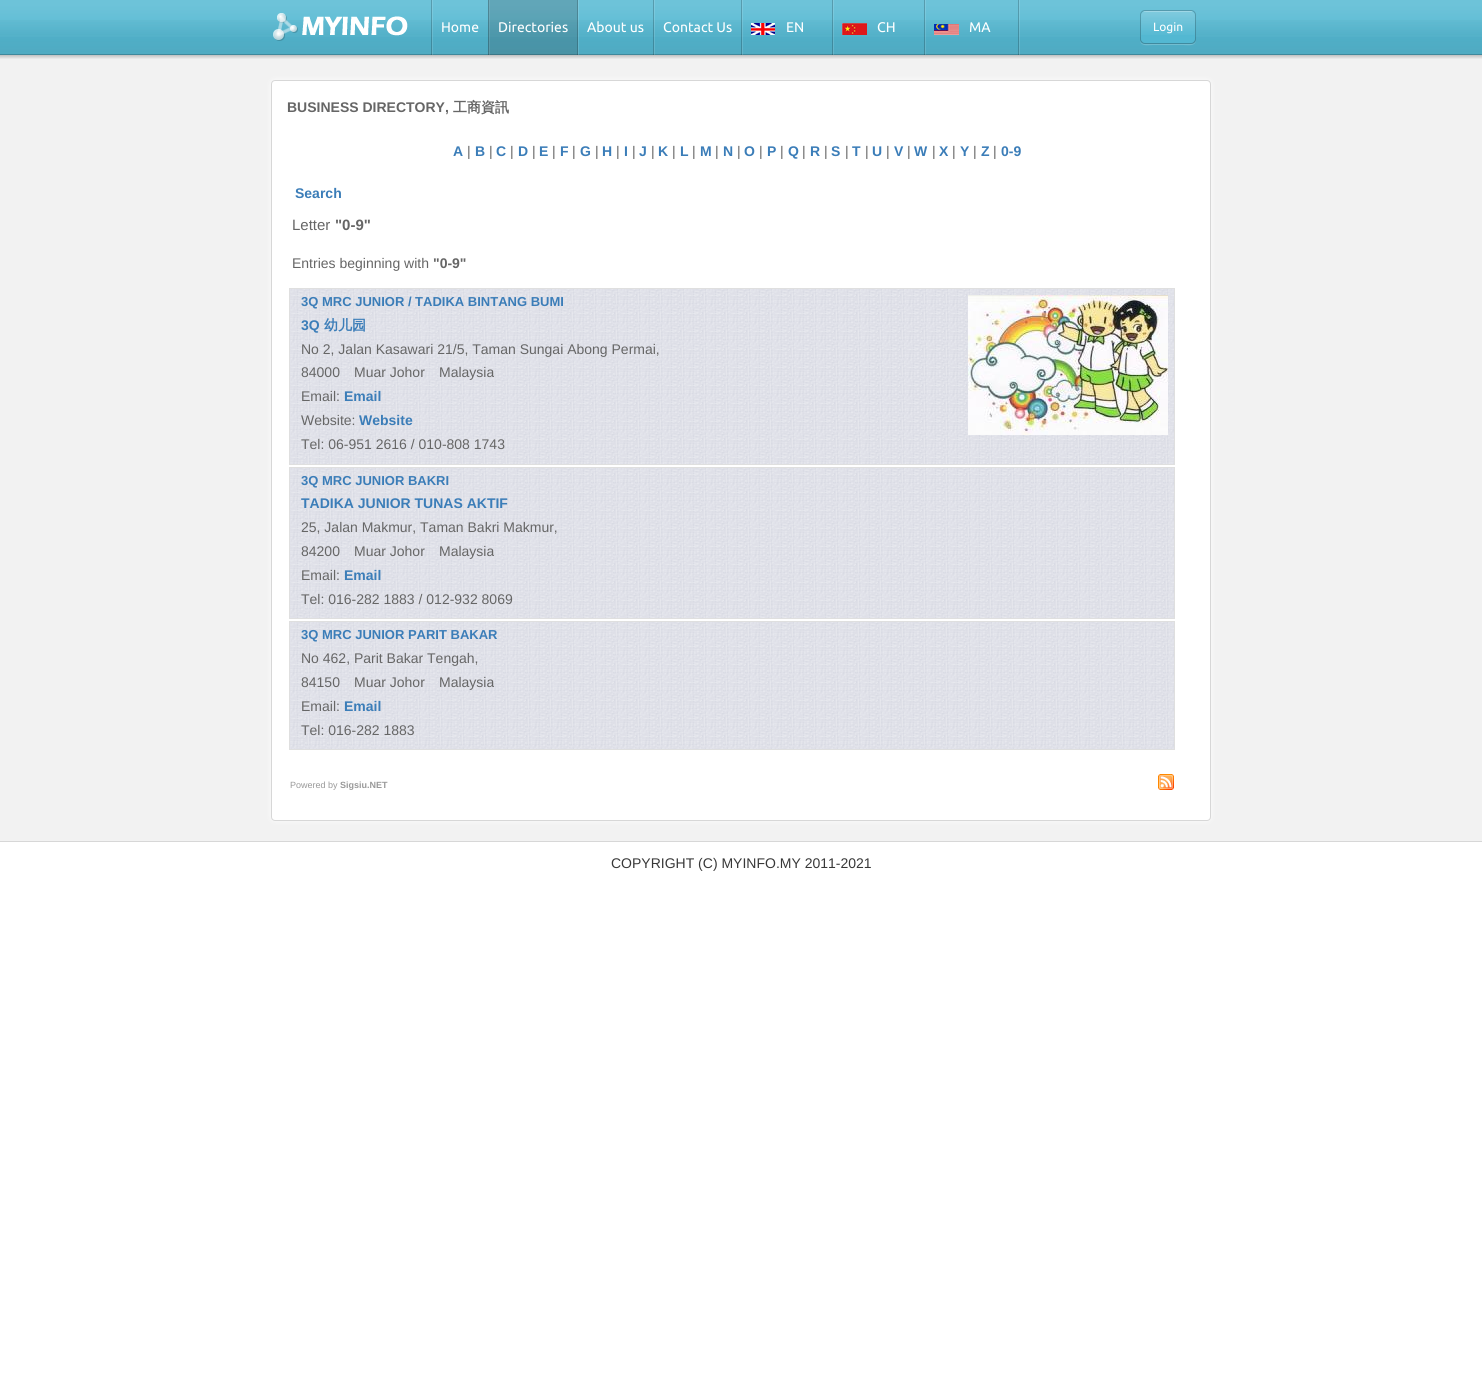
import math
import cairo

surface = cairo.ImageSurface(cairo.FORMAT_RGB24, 1482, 1400)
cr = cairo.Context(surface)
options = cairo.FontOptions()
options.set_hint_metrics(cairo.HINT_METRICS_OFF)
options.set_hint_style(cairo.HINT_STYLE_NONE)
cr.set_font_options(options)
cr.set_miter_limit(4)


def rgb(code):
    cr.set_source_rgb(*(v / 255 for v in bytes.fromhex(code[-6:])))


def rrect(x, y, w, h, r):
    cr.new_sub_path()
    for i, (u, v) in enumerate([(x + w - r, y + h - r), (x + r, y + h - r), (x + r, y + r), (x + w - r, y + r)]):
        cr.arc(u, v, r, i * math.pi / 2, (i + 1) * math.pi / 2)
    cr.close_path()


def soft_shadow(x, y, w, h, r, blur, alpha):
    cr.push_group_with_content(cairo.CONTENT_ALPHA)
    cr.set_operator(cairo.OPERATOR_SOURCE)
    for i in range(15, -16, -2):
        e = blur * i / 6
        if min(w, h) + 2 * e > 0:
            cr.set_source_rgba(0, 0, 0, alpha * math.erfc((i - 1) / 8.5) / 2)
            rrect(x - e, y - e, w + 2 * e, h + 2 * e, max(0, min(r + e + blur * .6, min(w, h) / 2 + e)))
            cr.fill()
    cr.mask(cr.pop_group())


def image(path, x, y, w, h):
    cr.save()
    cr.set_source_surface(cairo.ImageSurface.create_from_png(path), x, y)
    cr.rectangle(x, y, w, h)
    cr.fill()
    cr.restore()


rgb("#ffffff")
cr.paint()
rgb("#53b8d2")
cr.rectangle(0, 0, 1482, 55)
cr.fill()
image("img/1.png", 0, 0, 1482, 37)
image("img/2.png", 0, 20, 1482, 35)
image("img/3.png", 273, 13, 135, 28)
image("img/4.png", 431, 0, 2, 55)
image("img/4.png", 488, 0, 2, 55)
image("img/4.png", 577, 0, 2, 55)
cr.set_source_rgba(0.196, 0.196, 0.196, 0.2)
cr.rectangle(488, 0, 90, 55)
cr.fill()
image("img/4.png", 653, 0, 2, 55)
image("img/4.png", 741, 0, 2, 55)
image("img/4.png", 832, 0, 2, 55)
image("img/5.png", 751, 23, 24, 12)
image("img/4.png", 924, 0, 2, 55)
image("img/6.png", 842, 23, 25, 12)
image("img/4.png", 1018, 0, 2, 55)
image("img/7.png", 934, 24, 25, 11)
rgb("#73bdd0")
cr.new_path()
cr.move_to(1140, 39)
cr.curve_to(1140, 47, 1147, 45, 1153, 45)
cr.line_to(1183, 45)
cr.curve_to(1189, 45, 1196, 47, 1196, 39)
cr.curve_to(1196, 42, 1194, 44, 1191, 44)
cr.line_to(1145, 44)
cr.curve_to(1142, 44, 1140, 42, 1140, 39)
cr.close_path()
cr.fill()
rrect(1140.5, 10.5, 55, 33, 4.5)
cr.set_source_rgba(0, 0, 0, 0.2)
cr.set_line_width(1)
cr.stroke()
rgb("#53b8d2")
rrect(1141, 11, 54, 32, 5)
cr.fill()
image("img/8.png", 1141, 11, 54, 24)
rgb("#f2f2f2")
cr.rectangle(0, 55, 1482, 786)
cr.fill()
image("img/9.png", 0, 55, 1482, 4)
rgb("#d7d7d7")
cr.rectangle(0, 841, 1482, 1)
cr.fill()
rgb("#ffffff")
soft_shadow(271, 80, 940, 741, 4, 2.5, 0.8)
rgb("#ffffff")
rrect(271.5, 80.5, 939, 740, 3.5)
cr.fill_preserve()
rgb("#d7d7d7")
cr.stroke()
image("img/10.png", 290, 289, 884, 175)
cr.rectangle(289.5, 288.5, 885, 176)
rgb("#dfdfdf")
cr.stroke()
image("img/11.png", 968, 295, 200, 140)
image("img/12.png", 290, 468, 884, 150)
cr.rectangle(289.5, 467.5, 885, 151)
cr.stroke()
image("img/13.png", 290, 622, 884, 127)
cr.rectangle(289.5, 621.5, 885, 128)
cr.stroke()
image("img/14.png", 1158, 774, 16, 16)
cr.select_font_face("Ubuntu")
cr.set_font_size(14)
rgb("#ffffff")
for x, y, s in [
    (441, 32, "Home"),
    (498, 32, "Directories"),
    (587, 32, "About us"),
    (663, 32, "Contact Us"),
    (786, 32, "EN"),
    (877, 32, "CH"),
    (969, 32, "MA"),
]:
    cr.move_to(x, y)
    cr.show_text(s)
cr.set_font_size(12)
cr.move_to(1153, 31)
cr.show_text("Login")
cr.select_font_face("Liberation Sans", cairo.FONT_SLANT_NORMAL, cairo.FONT_WEIGHT_BOLD)
cr.set_font_size(14)
rgb("#666666")
cr.move_to(287, 112)
cr.show_text("BUSINESS DIRECTORY,")
cr.select_font_face("WenQuanYi Zen Hei", cairo.FONT_SLANT_NORMAL, cairo.FONT_WEIGHT_BOLD)
cr.move_to(453, 112)
cr.show_text("工商資訊")
cr.select_font_face("Liberation Sans", cairo.FONT_SLANT_NORMAL, cairo.FONT_WEIGHT_BOLD)
rgb("#3b7db8")
cr.move_to(453, 156)
cr.show_text("A")
cr.select_font_face("Liberation Sans")
rgb("#666666")
cr.move_to(467, 156)
cr.show_text("|")
cr.select_font_face("Liberation Sans", cairo.FONT_SLANT_NORMAL, cairo.FONT_WEIGHT_BOLD)
rgb("#3b7db8")
cr.move_to(475, 156)
cr.show_text("B")
cr.select_font_face("Liberation Sans")
rgb("#666666")
cr.move_to(489, 156)
cr.show_text("|")
cr.select_font_face("Liberation Sans", cairo.FONT_SLANT_NORMAL, cairo.FONT_WEIGHT_BOLD)
rgb("#3b7db8")
cr.move_to(496, 156)
cr.show_text("C")
cr.select_font_face("Liberation Sans")
rgb("#666666")
cr.move_to(510, 156)
cr.show_text("|")
cr.select_font_face("Liberation Sans", cairo.FONT_SLANT_NORMAL, cairo.FONT_WEIGHT_BOLD)
rgb("#3b7db8")
cr.move_to(518, 156)
cr.show_text("D")
cr.select_font_face("Liberation Sans")
rgb("#666666")
cr.move_to(532, 156)
cr.show_text("|")
cr.select_font_face("Liberation Sans", cairo.FONT_SLANT_NORMAL, cairo.FONT_WEIGHT_BOLD)
rgb("#3b7db8")
cr.move_to(539, 156)
cr.show_text("E")
cr.select_font_face("Liberation Sans")
rgb("#666666")
cr.move_to(552, 156)
cr.show_text("|")
cr.select_font_face("Liberation Sans", cairo.FONT_SLANT_NORMAL, cairo.FONT_WEIGHT_BOLD)
rgb("#3b7db8")
cr.move_to(560, 156)
cr.show_text("F")
cr.select_font_face("Liberation Sans")
rgb("#666666")
cr.move_to(572, 156)
cr.show_text("|")
cr.select_font_face("Liberation Sans", cairo.FONT_SLANT_NORMAL, cairo.FONT_WEIGHT_BOLD)
rgb("#3b7db8")
cr.move_to(580, 156)
cr.show_text("G")
cr.select_font_face("Liberation Sans")
rgb("#666666")
cr.move_to(595, 156)
cr.show_text("|")
cr.select_font_face("Liberation Sans", cairo.FONT_SLANT_NORMAL, cairo.FONT_WEIGHT_BOLD)
rgb("#3b7db8")
cr.move_to(602, 156)
cr.show_text("H")
cr.select_font_face("Liberation Sans")
rgb("#666666")
cr.move_to(616, 156)
cr.show_text("|")
cr.select_font_face("Liberation Sans", cairo.FONT_SLANT_NORMAL, cairo.FONT_WEIGHT_BOLD)
rgb("#3b7db8")
cr.move_to(624, 156)
cr.show_text("I")
cr.select_font_face("Liberation Sans")
rgb("#666666")
cr.move_to(632, 156)
cr.show_text("|")
cr.select_font_face("Liberation Sans", cairo.FONT_SLANT_NORMAL, cairo.FONT_WEIGHT_BOLD)
rgb("#3b7db8")
cr.move_to(639, 156)
cr.show_text("J")
cr.select_font_face("Liberation Sans")
rgb("#666666")
cr.move_to(651, 156)
cr.show_text("|")
cr.select_font_face("Liberation Sans", cairo.FONT_SLANT_NORMAL, cairo.FONT_WEIGHT_BOLD)
rgb("#3b7db8")
cr.move_to(658, 156)
cr.show_text("K")
cr.select_font_face("Liberation Sans")
rgb("#666666")
cr.move_to(672, 156)
cr.show_text("|")
cr.select_font_face("Liberation Sans", cairo.FONT_SLANT_NORMAL, cairo.FONT_WEIGHT_BOLD)
rgb("#3b7db8")
cr.move_to(680, 156)
cr.show_text("L")
cr.select_font_face("Liberation Sans")
rgb("#666666")
cr.move_to(692, 156)
cr.show_text("|")
cr.select_font_face("Liberation Sans", cairo.FONT_SLANT_NORMAL, cairo.FONT_WEIGHT_BOLD)
rgb("#3b7db8")
cr.move_to(700, 156)
cr.show_text("M")
cr.select_font_face("Liberation Sans")
rgb("#666666")
cr.move_to(715, 156)
cr.show_text("|")
cr.select_font_face("Liberation Sans", cairo.FONT_SLANT_NORMAL, cairo.FONT_WEIGHT_BOLD)
rgb("#3b7db8")
cr.move_to(723, 156)
cr.show_text("N")
cr.select_font_face("Liberation Sans")
rgb("#666666")
cr.move_to(737, 156)
cr.show_text("|")
cr.select_font_face("Liberation Sans", cairo.FONT_SLANT_NORMAL, cairo.FONT_WEIGHT_BOLD)
rgb("#3b7db8")
cr.move_to(744, 156)
cr.show_text("O")
cr.select_font_face("Liberation Sans")
rgb("#666666")
cr.move_to(759, 156)
cr.show_text("|")
cr.select_font_face("Liberation Sans", cairo.FONT_SLANT_NORMAL, cairo.FONT_WEIGHT_BOLD)
rgb("#3b7db8")
cr.move_to(767, 156)
cr.show_text("P")
cr.select_font_face("Liberation Sans")
rgb("#666666")
cr.move_to(780, 156)
cr.show_text("|")
cr.select_font_face("Liberation Sans", cairo.FONT_SLANT_NORMAL, cairo.FONT_WEIGHT_BOLD)
rgb("#3b7db8")
cr.move_to(788, 156)
cr.show_text("Q")
cr.select_font_face("Liberation Sans")
rgb("#666666")
cr.move_to(802, 156)
cr.show_text("|")
cr.select_font_face("Liberation Sans", cairo.FONT_SLANT_NORMAL, cairo.FONT_WEIGHT_BOLD)
rgb("#3b7db8")
cr.move_to(810, 156)
cr.show_text("R")
cr.select_font_face("Liberation Sans")
rgb("#666666")
cr.move_to(824, 156)
cr.show_text("|")
cr.select_font_face("Liberation Sans", cairo.FONT_SLANT_NORMAL, cairo.FONT_WEIGHT_BOLD)
rgb("#3b7db8")
cr.move_to(831, 156)
cr.show_text("S")
cr.select_font_face("Liberation Sans")
rgb("#666666")
cr.move_to(845, 156)
cr.show_text("|")
cr.select_font_face("Liberation Sans", cairo.FONT_SLANT_NORMAL, cairo.FONT_WEIGHT_BOLD)
rgb("#3b7db8")
cr.move_to(852, 156)
cr.show_text("T")
cr.select_font_face("Liberation Sans")
rgb("#666666")
cr.move_to(865, 156)
cr.show_text("|")
cr.select_font_face("Liberation Sans", cairo.FONT_SLANT_NORMAL, cairo.FONT_WEIGHT_BOLD)
rgb("#3b7db8")
cr.move_to(872, 156)
cr.show_text("U")
cr.select_font_face("Liberation Sans")
rgb("#666666")
cr.move_to(886, 156)
cr.show_text("|")
cr.select_font_face("Liberation Sans", cairo.FONT_SLANT_NORMAL, cairo.FONT_WEIGHT_BOLD)
rgb("#3b7db8")
cr.move_to(894, 156)
cr.show_text("V")
cr.select_font_face("Liberation Sans")
rgb("#666666")
cr.move_to(907, 156)
cr.show_text("|")
cr.select_font_face("Liberation Sans", cairo.FONT_SLANT_NORMAL, cairo.FONT_WEIGHT_BOLD)
rgb("#3b7db8")
cr.move_to(914, 156)
cr.show_text("W")
cr.select_font_face("Liberation Sans")
rgb("#666666")
cr.move_to(932, 156)
cr.show_text("|")
cr.select_font_face("Liberation Sans", cairo.FONT_SLANT_NORMAL, cairo.FONT_WEIGHT_BOLD)
rgb("#3b7db8")
cr.move_to(939, 156)
cr.show_text("X")
cr.select_font_face("Liberation Sans")
rgb("#666666")
cr.move_to(952, 156)
cr.show_text("|")
cr.select_font_face("Liberation Sans", cairo.FONT_SLANT_NORMAL, cairo.FONT_WEIGHT_BOLD)
rgb("#3b7db8")
cr.move_to(960, 156)
cr.show_text("Y")
cr.select_font_face("Liberation Sans")
rgb("#666666")
cr.move_to(973, 156)
cr.show_text("|")
cr.select_font_face("Liberation Sans", cairo.FONT_SLANT_NORMAL, cairo.FONT_WEIGHT_BOLD)
rgb("#3b7db8")
cr.move_to(981, 156)
cr.show_text("Z")
cr.select_font_face("Liberation Sans")
rgb("#666666")
cr.move_to(993, 156)
cr.show_text("|")
cr.select_font_face("Liberation Sans", cairo.FONT_SLANT_NORMAL, cairo.FONT_WEIGHT_BOLD)
rgb("#3b7db8")
cr.move_to(1001, 156)
cr.show_text("0-9")
cr.move_to(295, 198)
cr.show_text("Search")
cr.select_font_face("Liberation Sans")
cr.set_font_size(15)
rgb("#666666")
cr.move_to(292, 230)
cr.show_text("Letter")
cr.select_font_face("Liberation Sans", cairo.FONT_SLANT_NORMAL, cairo.FONT_WEIGHT_BOLD)
cr.move_to(335, 230)
cr.show_text("\"0-9\"")
cr.select_font_face("Liberation Sans")
cr.set_font_size(14)
cr.move_to(292, 268)
cr.show_text("Entries beginning with")
cr.select_font_face("Liberation Sans", cairo.FONT_SLANT_NORMAL, cairo.FONT_WEIGHT_BOLD)
cr.move_to(433, 268)
cr.show_text("\"0-9\"")
cr.set_font_size(13)
rgb("#3b7db8")
cr.move_to(301, 306)
cr.show_text("3Q MRC JUNIOR / TADIKA BINTANG BUMI")
cr.set_font_size(14)
cr.move_to(301, 330)
cr.show_text("3Q")
cr.select_font_face("WenQuanYi Zen Hei", cairo.FONT_SLANT_NORMAL, cairo.FONT_WEIGHT_BOLD)
cr.move_to(324, 330)
cr.show_text("幼儿园")
cr.select_font_face("Liberation Sans")
rgb("#666666")
for x, y, s in [
    (301, 354, "No 2, Jalan Kasawari 21/5, Taman Sungai Abong Permai,"),
    (301, 377, "84000"),
    (354, 377, "Muar Johor"),
    (439, 377, "Malaysia"),
    (301, 401, "Email:"),
]:
    cr.move_to(x, y)
    cr.show_text(s)
cr.select_font_face("Liberation Sans", cairo.FONT_SLANT_NORMAL, cairo.FONT_WEIGHT_BOLD)
rgb("#3b7db8")
cr.move_to(344, 401)
cr.show_text("Email")
cr.select_font_face("Liberation Sans")
rgb("#666666")
cr.move_to(301, 425)
cr.show_text("Website:")
cr.select_font_face("Liberation Sans", cairo.FONT_SLANT_NORMAL, cairo.FONT_WEIGHT_BOLD)
rgb("#3b7db8")
cr.move_to(359, 425)
cr.show_text("Website")
cr.select_font_face("Liberation Sans")
rgb("#666666")
cr.move_to(301, 449)
cr.show_text("Tel: 06-951 2616 / 010-808 1743")
cr.select_font_face("Liberation Sans", cairo.FONT_SLANT_NORMAL, cairo.FONT_WEIGHT_BOLD)
cr.set_font_size(13)
rgb("#3b7db8")
cr.move_to(301, 485)
cr.show_text("3Q MRC JUNIOR BAKRI")
cr.set_font_size(14)
cr.move_to(301, 508)
cr.show_text("TADIKA JUNIOR TUNAS AKTIF")
cr.select_font_face("Liberation Sans")
rgb("#666666")
for x, y, s in [
    (301, 532, "25, Jalan Makmur, Taman Bakri Makmur,"),
    (301, 556, "84200"),
    (354, 556, "Muar Johor"),
    (439, 556, "Malaysia"),
    (301, 580, "Email:"),
]:
    cr.move_to(x, y)
    cr.show_text(s)
cr.select_font_face("Liberation Sans", cairo.FONT_SLANT_NORMAL, cairo.FONT_WEIGHT_BOLD)
rgb("#3b7db8")
cr.move_to(344, 580)
cr.show_text("Email")
cr.select_font_face("Liberation Sans")
rgb("#666666")
cr.move_to(301, 604)
cr.show_text("Tel: 016-282 1883 / 012-932 8069")
cr.select_font_face("Liberation Sans", cairo.FONT_SLANT_NORMAL, cairo.FONT_WEIGHT_BOLD)
cr.set_font_size(13)
rgb("#3b7db8")
cr.move_to(301, 639)
cr.show_text("3Q MRC JUNIOR PARIT BAKAR")
cr.select_font_face("Liberation Sans")
cr.set_font_size(14)
rgb("#666666")
for x, y, s in [
    (301, 663, "No 462, Parit Bakar Tengah,"),
    (301, 687, "84150"),
    (354, 687, "Muar Johor"),
    (439, 687, "Malaysia"),
    (301, 711, "Email:"),
]:
    cr.move_to(x, y)
    cr.show_text(s)
cr.select_font_face("Liberation Sans", cairo.FONT_SLANT_NORMAL, cairo.FONT_WEIGHT_BOLD)
rgb("#3b7db8")
cr.move_to(344, 711)
cr.show_text("Email")
cr.select_font_face("Liberation Sans")
rgb("#666666")
cr.move_to(301, 735)
cr.show_text("Tel: 016-282 1883")
cr.set_font_size(9)
rgb("#999999")
cr.move_to(290, 788)
cr.show_text("Powered by")
cr.select_font_face("Liberation Sans", cairo.FONT_SLANT_NORMAL, cairo.FONT_WEIGHT_BOLD)
cr.move_to(340, 788)
cr.show_text("Sigsiu.NET")
cr.select_font_face("Liberation Sans")
cr.set_font_size(14)
rgb("#383838")
cr.move_to(611, 868)
cr.show_text("COPYRIGHT (C) MYINFO.MY 2011-2021")
surface.write_to_png("page.png")
